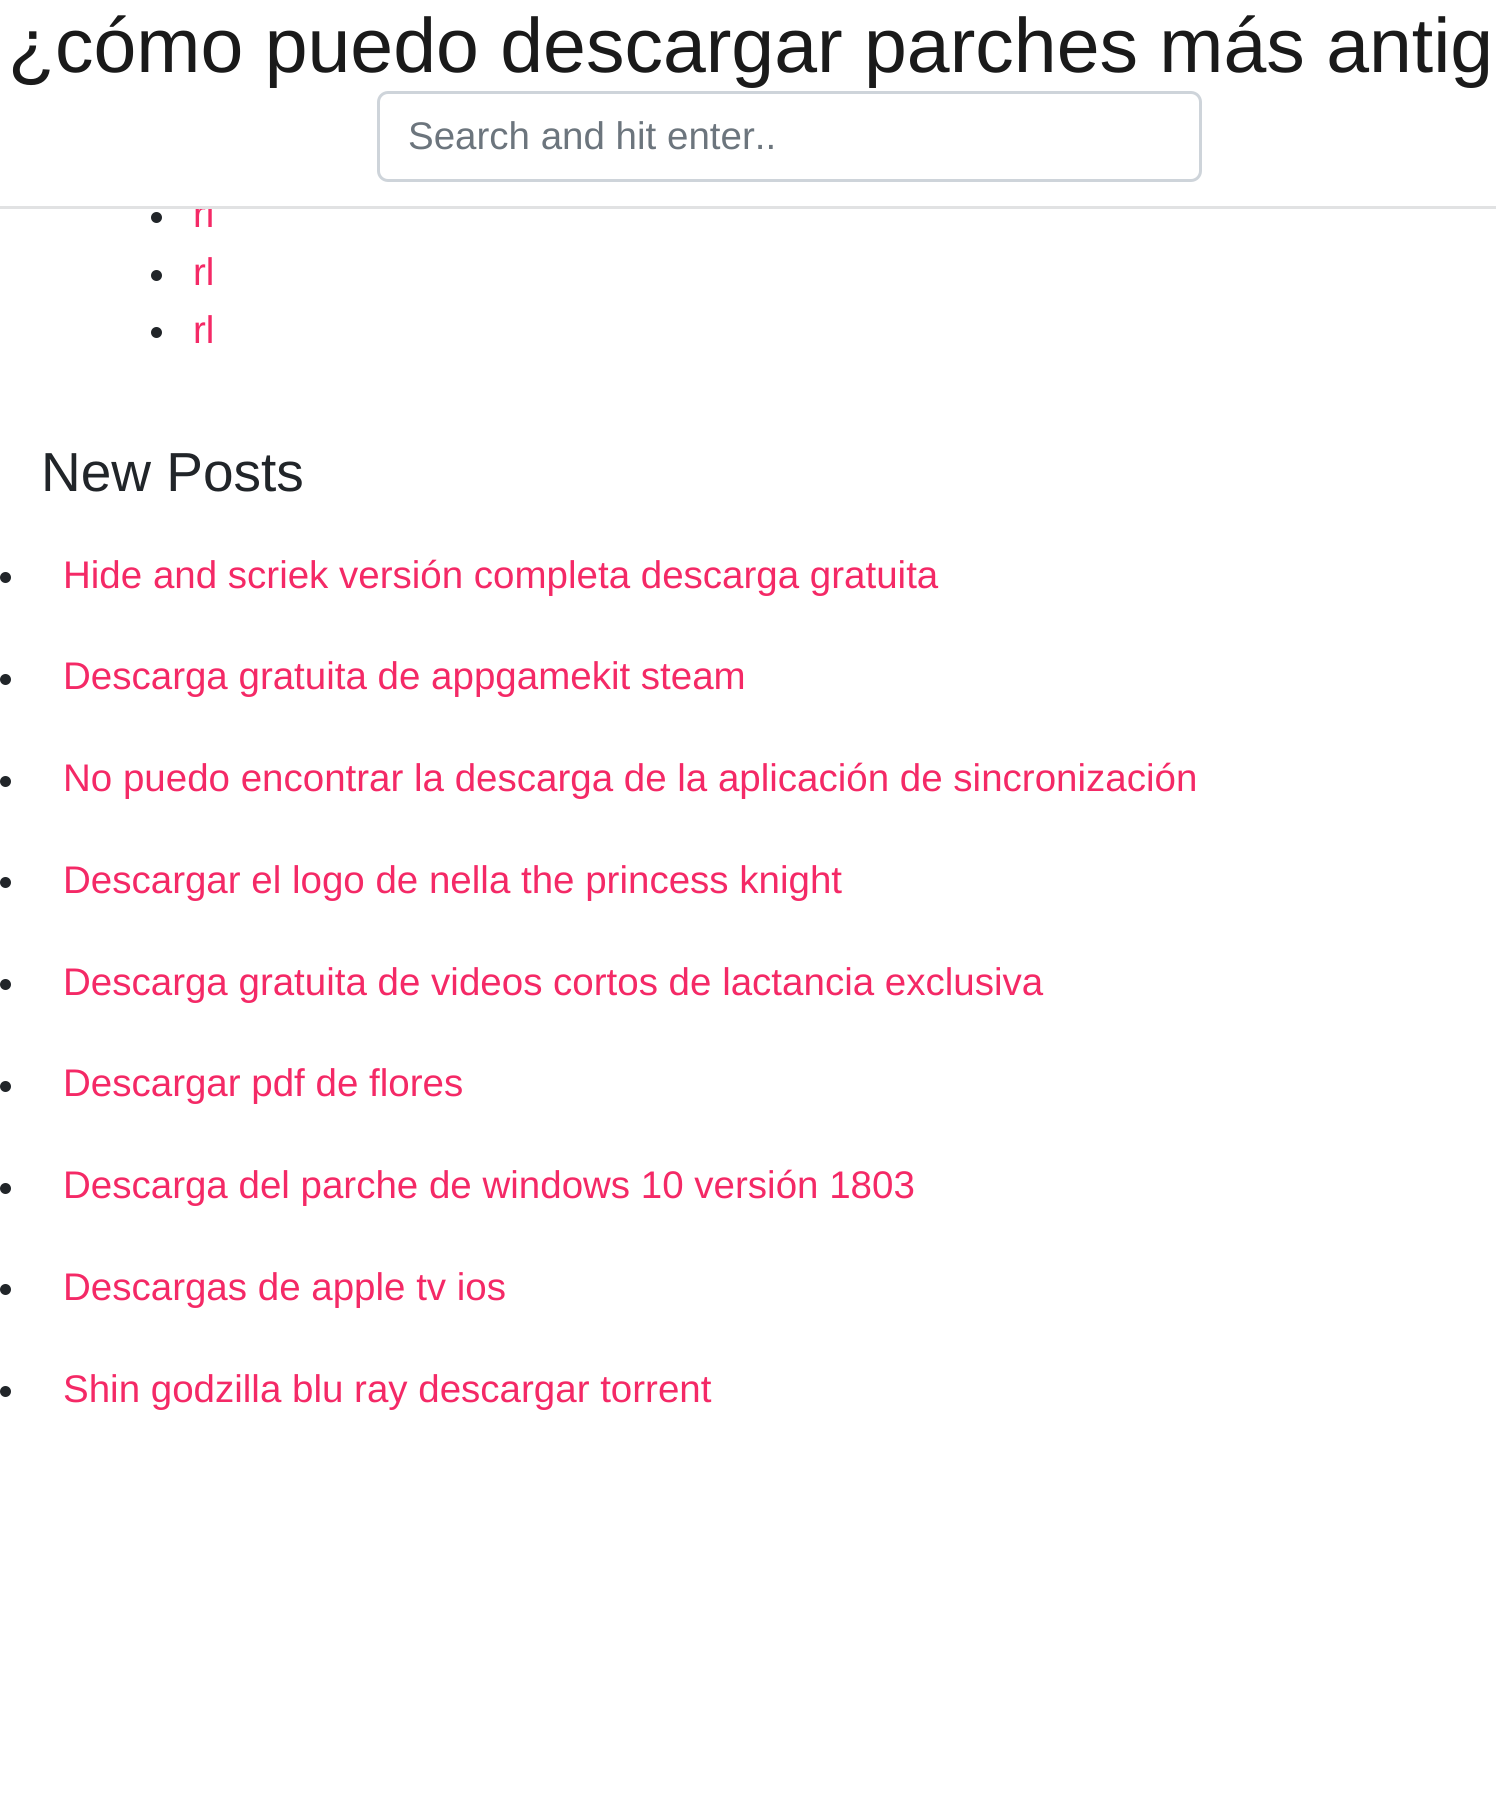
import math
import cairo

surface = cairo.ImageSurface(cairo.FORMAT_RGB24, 1496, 1812)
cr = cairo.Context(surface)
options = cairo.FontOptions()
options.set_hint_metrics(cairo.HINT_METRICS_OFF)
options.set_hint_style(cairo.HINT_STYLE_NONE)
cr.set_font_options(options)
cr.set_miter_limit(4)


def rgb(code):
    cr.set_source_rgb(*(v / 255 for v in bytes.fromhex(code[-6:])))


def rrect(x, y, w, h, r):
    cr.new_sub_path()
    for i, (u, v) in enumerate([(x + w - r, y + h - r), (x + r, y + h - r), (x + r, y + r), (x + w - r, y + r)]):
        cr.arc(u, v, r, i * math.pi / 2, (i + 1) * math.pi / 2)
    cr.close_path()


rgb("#ffffff")
cr.paint()
rrect(378.5, 92.5, 822, 88, 9.5)
rgb("#ced4da")
cr.set_line_width(3)
cr.stroke()
rgb("#212529")
cr.arc(156.5, 217.5, 5.5, 0, 2 * math.pi)
cr.fill()
cr.arc(156.5, 275.5, 5.5, 0, 2 * math.pi)
cr.fill()
cr.arc(156.5, 332.5, 5.5, 0, 2 * math.pi)
cr.fill()
cr.arc(5.5, 577.5, 5.5, 0, 2 * math.pi)
cr.fill()
cr.arc(5.5, 679.5, 5.5, 0, 2 * math.pi)
cr.fill()
cr.arc(5.5, 781.5, 5.5, 0, 2 * math.pi)
cr.fill()
cr.arc(5.5, 882.5, 5.5, 0, 2 * math.pi)
cr.fill()
cr.arc(5.5, 984.5, 5.5, 0, 2 * math.pi)
cr.fill()
cr.arc(5.5, 1086.5, 5.5, 0, 2 * math.pi)
cr.fill()
cr.arc(5.5, 1188.5, 5.5, 0, 2 * math.pi)
cr.fill()
cr.arc(5.5, 1289.5, 5.5, 0, 2 * math.pi)
cr.fill()
cr.arc(5.5, 1391.5, 5.5, 0, 2 * math.pi)
cr.fill()
cr.select_font_face("Liberation Sans")
cr.set_font_size(77)
rgb("#1a1a1a")
cr.move_to(8, 72)
cr.show_text("¿cómo puedo descargar parches más antig")
cr.set_font_size(38.5)
rgb("#6c757d")
cr.move_to(408, 149)
cr.show_text("Search and hit enter..")
rgb("#f42966")
cr.move_to(193, 227)
cr.show_text("rl")
rgb("#e1e2e3")
cr.rectangle(0, 206, 1496, 3)
cr.fill()
rgb("#ffffff")
cr.rectangle(207, 199, 5, 7)
cr.fill()
rgb("#f42966")
cr.move_to(193, 285)
cr.show_text("rl")
cr.move_to(193, 343)
cr.show_text("rl")
cr.set_font_size(55)
rgb("#212529")
cr.move_to(41, 491)
cr.show_text("New Posts")
cr.set_font_size(38.5)
rgb("#f42966")
for x, y, s in [
    (63, 588, "Hide and scriek versión completa descarga gratuita"),
    (63, 689, "Descarga gratuita de appgamekit steam"),
    (63, 791, "No puedo encontrar la descarga de la aplicación de sincronización"),
    (63, 893, "Descargar el logo de nella the princess knight"),
    (63, 995, "Descarga gratuita de videos cortos de lactancia exclusiva"),
    (63, 1096, "Descargar pdf de flores"),
    (63, 1198, "Descarga del parche de windows 10 versión 1803"),
    (63, 1300, "Descargas de apple tv ios"),
    (63, 1402, "Shin godzilla blu ray descargar torrent"),
]:
    cr.move_to(x, y)
    cr.show_text(s)
surface.write_to_png("page.png")
